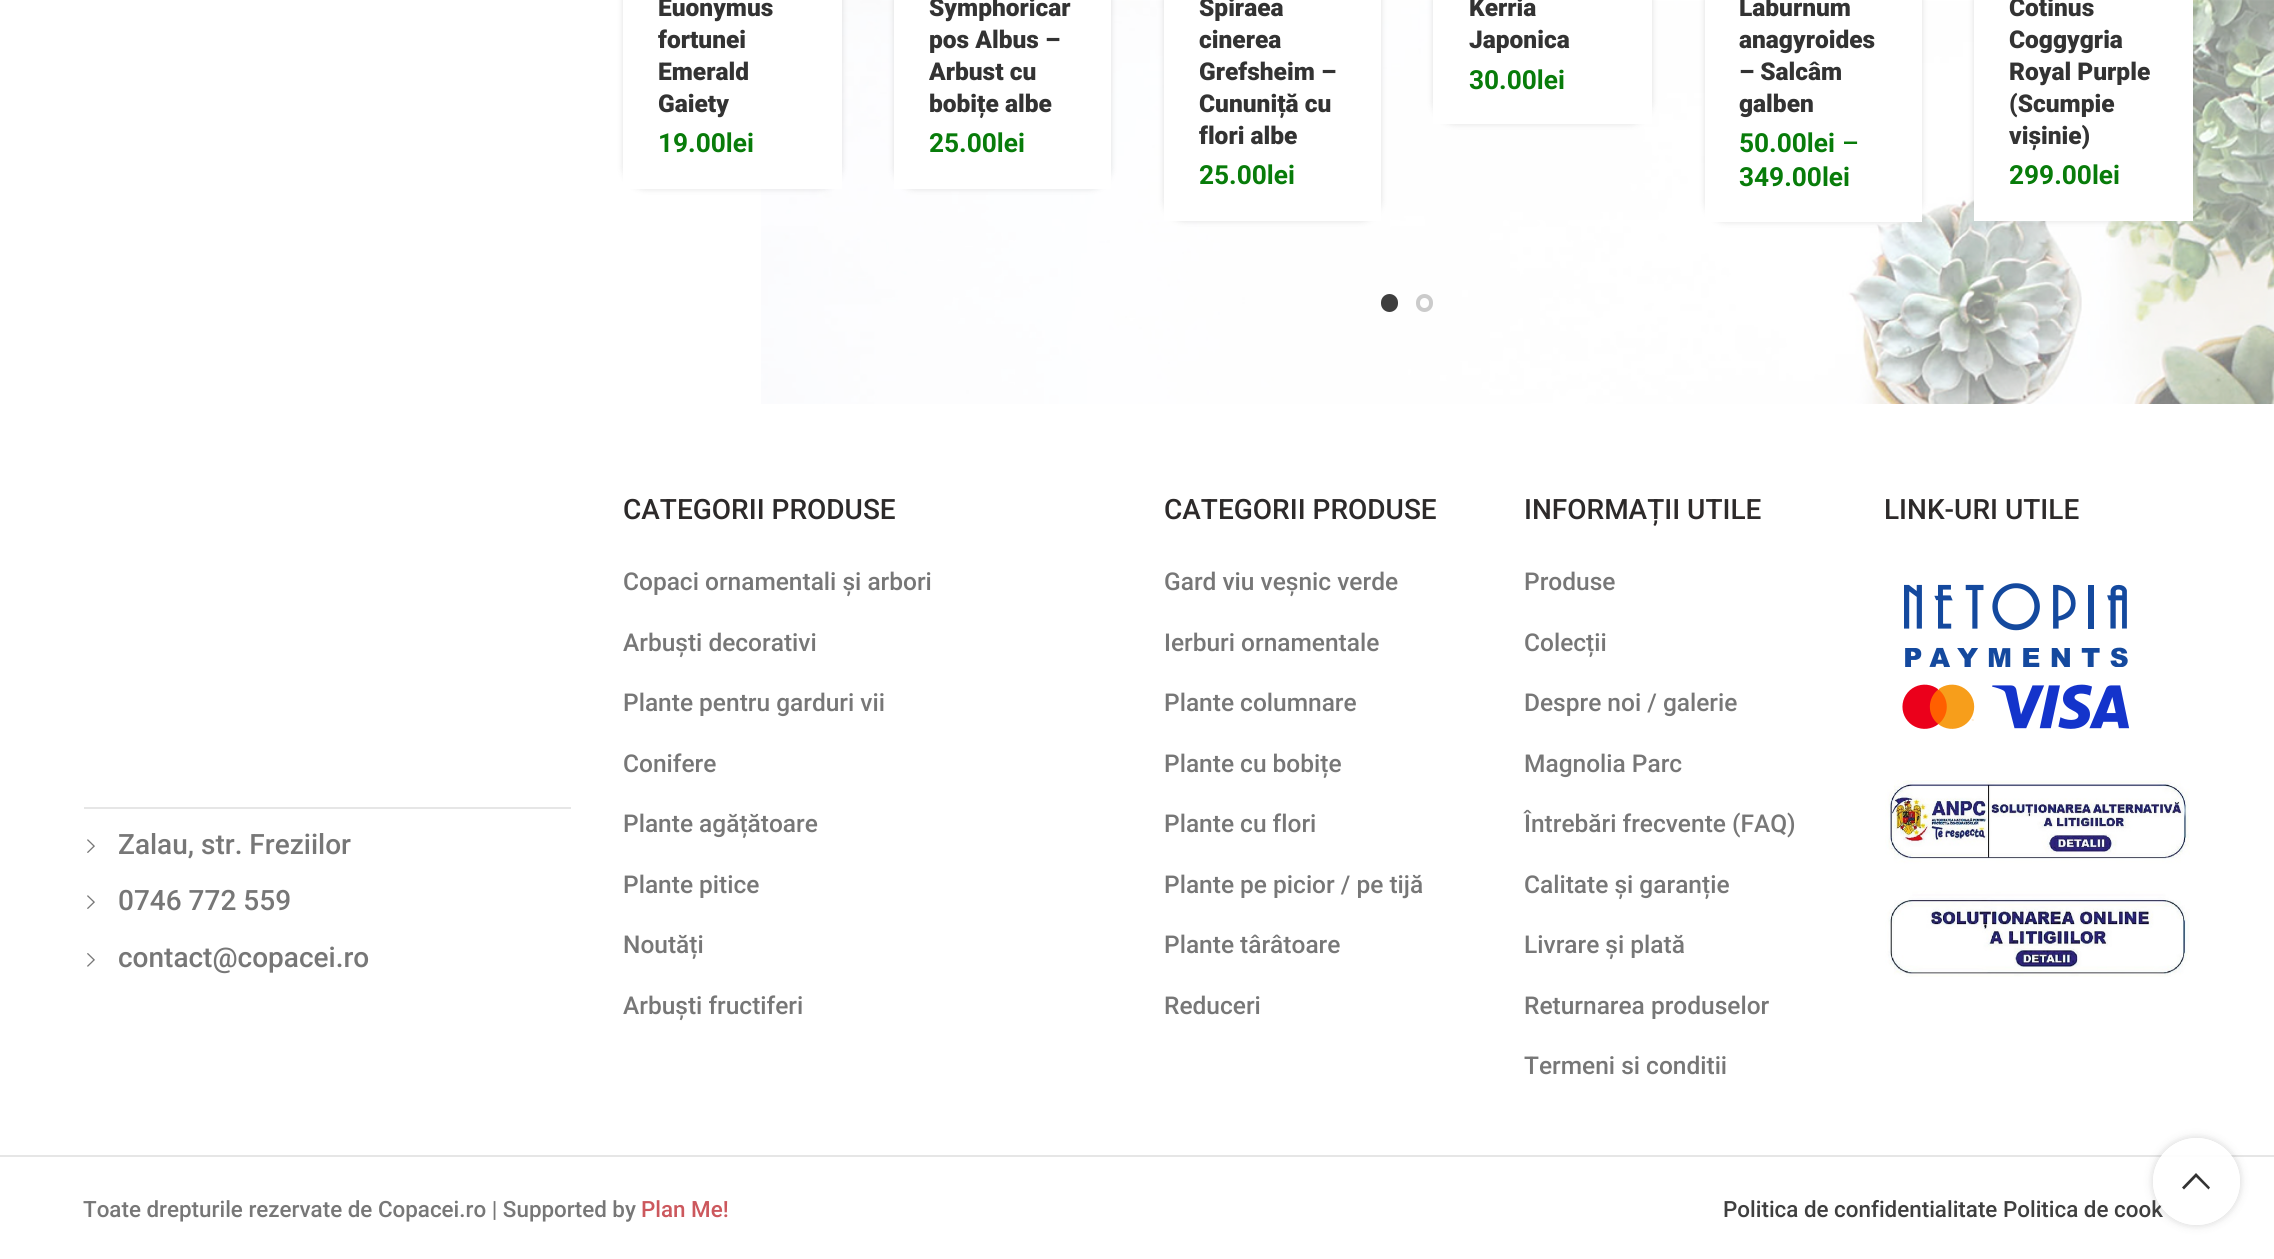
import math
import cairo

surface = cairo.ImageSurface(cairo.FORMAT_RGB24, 2274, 1259)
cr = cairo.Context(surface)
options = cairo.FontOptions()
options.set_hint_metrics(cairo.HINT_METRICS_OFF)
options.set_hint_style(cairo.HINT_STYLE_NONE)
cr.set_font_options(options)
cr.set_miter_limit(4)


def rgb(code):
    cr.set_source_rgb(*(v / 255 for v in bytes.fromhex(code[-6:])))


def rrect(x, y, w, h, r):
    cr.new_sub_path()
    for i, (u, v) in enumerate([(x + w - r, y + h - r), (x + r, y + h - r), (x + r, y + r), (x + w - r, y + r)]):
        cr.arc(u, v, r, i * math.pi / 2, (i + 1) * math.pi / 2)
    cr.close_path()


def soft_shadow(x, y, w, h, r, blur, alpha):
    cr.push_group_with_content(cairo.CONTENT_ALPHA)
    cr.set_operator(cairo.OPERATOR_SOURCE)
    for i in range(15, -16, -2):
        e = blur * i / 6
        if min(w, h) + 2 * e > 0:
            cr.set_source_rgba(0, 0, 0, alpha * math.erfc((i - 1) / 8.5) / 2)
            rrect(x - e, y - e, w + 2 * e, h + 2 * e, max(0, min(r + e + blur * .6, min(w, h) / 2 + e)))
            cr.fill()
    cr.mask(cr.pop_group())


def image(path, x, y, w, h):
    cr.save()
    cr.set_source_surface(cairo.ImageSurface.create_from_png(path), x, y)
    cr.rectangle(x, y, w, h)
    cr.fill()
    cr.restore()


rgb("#ffffff")
cr.paint()
image("img/1.png", 761, 0, 1513, 404)
rgb("#000000")
soft_shadow(623, -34, 219, 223, 23, 3.5, 0.12)
rgb("#ffffff")
cr.rectangle(623, 0, 219, 189)
cr.fill()
rgb("#000000")
soft_shadow(894, -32, 217, 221, 21, 3.5, 0.12)
rgb("#ffffff")
cr.rectangle(894, 0, 217, 189)
cr.fill()
rgb("#000000")
soft_shadow(1164, -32, 217, 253, 21, 3.5, 0.12)
rgb("#ffffff")
cr.rectangle(1164, 0, 217, 221)
cr.fill()
rgb("#000000")
soft_shadow(1433, -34, 219, 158, 23, 3.5, 0.12)
rgb("#ffffff")
cr.rectangle(1433, 0, 219, 124)
cr.fill()
rgb("#000000")
soft_shadow(1705, -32, 217, 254, 21, 3.5, 0.12)
rgb("#ffffff")
cr.rectangle(1705, 0, 217, 222)
cr.fill()
rgb("#000000")
soft_shadow(1974, -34, 219, 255, 23, 3.5, 0.12)
rgb("#ffffff")
cr.rectangle(1974, 0, 219, 221)
cr.fill()
rgb("#3e3e3e")
rrect(1383, 296, 13, 14, 6.5)
cr.fill_preserve()
cr.set_line_width(4)
cr.stroke()
rrect(1418, 296, 13, 14, 6.5)
rgb("#cbcbcb")
cr.stroke()
image("img/2.png", 1902, 583, 228, 146)
image("img/3.png", 1885, 780, 305, 197)
rgb("#e6e6e6")
cr.rectangle(84, 807, 487, 2)
cr.fill()
image("img/4.png", 87, 839, 8, 14)
image("img/4.png", 87, 895, 8, 14)
image("img/5.png", 87, 953, 8, 14)
cr.rectangle(0, 1155, 2274, 2)
cr.fill()
cr.save()
cr.set_fill_rule(cairo.FILL_RULE_EVEN_ODD)
cr.new_path()
cr.move_to(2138, 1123)
cr.line_to(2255, 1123)
cr.line_to(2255, 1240)
cr.line_to(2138, 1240)
cr.close_path()
cr.move_to(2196.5, 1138)
cr.curve_to(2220.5, 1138, 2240, 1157.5, 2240, 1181.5)
cr.curve_to(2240, 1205.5, 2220.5, 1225, 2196.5, 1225)
cr.curve_to(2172.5, 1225, 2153, 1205.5, 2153, 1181.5)
cr.curve_to(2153, 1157.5, 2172.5, 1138, 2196.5, 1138)
cr.close_path()
cr.clip()
rgb("#000000")
soft_shadow(2153, 1138, 87, 87, 43.5, 4.5, 0.17)
cr.restore()
cr.select_font_face("Roboto Black")
cr.set_font_size(24.5)
rgb("#333333")
for x, y, s in [
    (658, 16, "Euonymus"),
    (658, 48, "fortunei"),
    (658, 80, "Emerald"),
    (658, 112, "Gaiety"),
]:
    cr.move_to(x, y)
    cr.show_text(s)
cr.select_font_face("Roboto", cairo.FONT_SLANT_NORMAL, cairo.FONT_WEIGHT_BOLD)
cr.set_font_size(26.25)
rgb("#087c0a")
cr.move_to(658, 152)
cr.show_text("19.00lei")
cr.select_font_face("Roboto Black")
cr.set_font_size(24.5)
rgb("#333333")
for x, y, s in [
    (929, 16, "Symphoricar"),
    (929, 48, "pos Albus –"),
    (929, 80, "Arbust cu"),
    (929, 112, "bobițe albe"),
]:
    cr.move_to(x, y)
    cr.show_text(s)
cr.select_font_face("Roboto", cairo.FONT_SLANT_NORMAL, cairo.FONT_WEIGHT_BOLD)
cr.set_font_size(26.25)
rgb("#087c0a")
cr.move_to(929, 152)
cr.show_text("25.00lei")
cr.select_font_face("Roboto Black")
cr.set_font_size(24.5)
rgb("#333333")
for x, y, s in [
    (1199, 16, "Spiraea"),
    (1199, 48, "cinerea"),
    (1199, 80, "Grefsheim –"),
    (1199, 112, "Cununiță cu"),
    (1199, 144, "flori albe"),
]:
    cr.move_to(x, y)
    cr.show_text(s)
cr.select_font_face("Roboto", cairo.FONT_SLANT_NORMAL, cairo.FONT_WEIGHT_BOLD)
cr.set_font_size(26.25)
rgb("#087c0a")
cr.move_to(1199, 184)
cr.show_text("25.00lei")
cr.select_font_face("Roboto Black")
cr.set_font_size(24.5)
rgb("#333333")
cr.move_to(1469, 16)
cr.show_text("Kerria")
cr.move_to(1469, 48)
cr.show_text("Japonica")
cr.select_font_face("Roboto", cairo.FONT_SLANT_NORMAL, cairo.FONT_WEIGHT_BOLD)
cr.set_font_size(26.25)
rgb("#087c0a")
cr.move_to(1469, 89)
cr.show_text("30.00lei")
cr.select_font_face("Roboto Black")
cr.set_font_size(24.5)
rgb("#333333")
for x, y, s in [
    (1739, 16, "Laburnum"),
    (1739, 48, "anagyroides"),
    (1739, 80, "– Salcâm"),
    (1739, 112, "galben"),
]:
    cr.move_to(x, y)
    cr.show_text(s)
cr.select_font_face("Roboto", cairo.FONT_SLANT_NORMAL, cairo.FONT_WEIGHT_BOLD)
cr.set_font_size(26.25)
rgb("#087c0a")
cr.move_to(1739, 152)
cr.show_text("50.00lei")
cr.select_font_face("Roboto Medium")
cr.move_to(1842, 152)
cr.show_text("–")
cr.select_font_face("Roboto", cairo.FONT_SLANT_NORMAL, cairo.FONT_WEIGHT_BOLD)
cr.move_to(1739, 186)
cr.show_text("349.00lei")
cr.select_font_face("Roboto Black")
cr.set_font_size(24.5)
rgb("#333333")
for x, y, s in [
    (2009, 16, "Cotinus"),
    (2009, 48, "Coggygria"),
    (2009, 80, "Royal Purple"),
    (2009, 112, "(Scumpie"),
    (2009, 144, "vișinie)"),
]:
    cr.move_to(x, y)
    cr.show_text(s)
cr.select_font_face("Roboto", cairo.FONT_SLANT_NORMAL, cairo.FONT_WEIGHT_BOLD)
cr.set_font_size(26.25)
rgb("#087c0a")
cr.move_to(2009, 184)
cr.show_text("299.00lei")
cr.select_font_face("Roboto Medium")
cr.set_font_size(28)
rgb("#2d2a2a")
cr.move_to(623, 519)
cr.show_text("CATEGORII PRODUSE")
cr.set_font_size(24.5)
rgb("#777777")
for x, y, s in [
    (623, 590, "Copaci ornamentali și arbori"),
    (623, 651, "Arbuști decorativi"),
    (623, 711, "Plante pentru garduri vii"),
    (623, 772, "Conifere"),
    (623, 832, "Plante agățătoare"),
    (623, 893, "Plante pitice"),
    (623, 953, "Noutăți"),
    (623, 1014, "Arbuști fructiferi"),
]:
    cr.move_to(x, y)
    cr.show_text(s)
cr.set_font_size(28)
rgb("#2d2a2a")
cr.move_to(1164, 519)
cr.show_text("CATEGORII PRODUSE")
cr.set_font_size(24.5)
rgb("#777777")
for x, y, s in [
    (1164, 590, "Gard viu veșnic verde"),
    (1164, 651, "Ierburi ornamentale"),
    (1164, 711, "Plante columnare"),
    (1164, 772, "Plante cu bobițe"),
    (1164, 832, "Plante cu flori"),
    (1164, 893, "Plante pe picior / pe tijă"),
    (1164, 953, "Plante târâtoare"),
    (1164, 1014, "Reduceri"),
]:
    cr.move_to(x, y)
    cr.show_text(s)
cr.set_font_size(28)
rgb("#2d2a2a")
cr.move_to(1524, 519)
cr.show_text("INFORMAȚII UTILE")
cr.set_font_size(24.5)
rgb("#777777")
for x, y, s in [
    (1524, 590, "Produse"),
    (1524, 651, "Colecții"),
    (1524, 711, "Despre noi / galerie"),
    (1524, 772, "Magnolia Parc"),
    (1524, 832, "Întrebări frecvente (FAQ)"),
    (1524, 893, "Calitate și garanție"),
    (1524, 953, "Livrare și plată"),
    (1524, 1014, "Returnarea produselor"),
    (1524, 1074, "Termeni si conditii"),
]:
    cr.move_to(x, y)
    cr.show_text(s)
cr.set_font_size(28)
rgb("#2d2a2a")
cr.move_to(1884, 519)
cr.show_text("LINK-URI UTILE")
rgb("#777777")
for x, y, s in [
    (118, 854, "Zalau, str. Freziilor"),
    (118, 910, "0746 772 559"),
    (118, 967, "contact@copacei.ro"),
]:
    cr.move_to(x, y)
    cr.show_text(s)
cr.set_font_size(22.4)
cr.move_to(83, 1217)
cr.show_text("Toate drepturile rezervate de Copacei.ro | Supported by")
rgb("#cc585d")
cr.move_to(641, 1217)
cr.show_text("Plan Me!")
rgb("#3f3f3f")
cr.move_to(1723, 1217)
cr.show_text("Politica de confidentialitate Politica de cook")
cr.set_source_rgba(1, 1, 1, 0.9)
cr.new_path()
cr.arc(2196.5, 1181.5, 43.5, 0, 2 * math.pi)
cr.fill()
rgb("#333333")
cr.new_path()
cr.move_to(2196, 1173)
cr.line_to(2210, 1187.5)
cr.line_to(2208.5, 1189.5)
cr.line_to(2196, 1177)
cr.line_to(2184, 1189.5)
cr.line_to(2182, 1187.5)
cr.close_path()
cr.fill()
surface.write_to_png("page.png")
